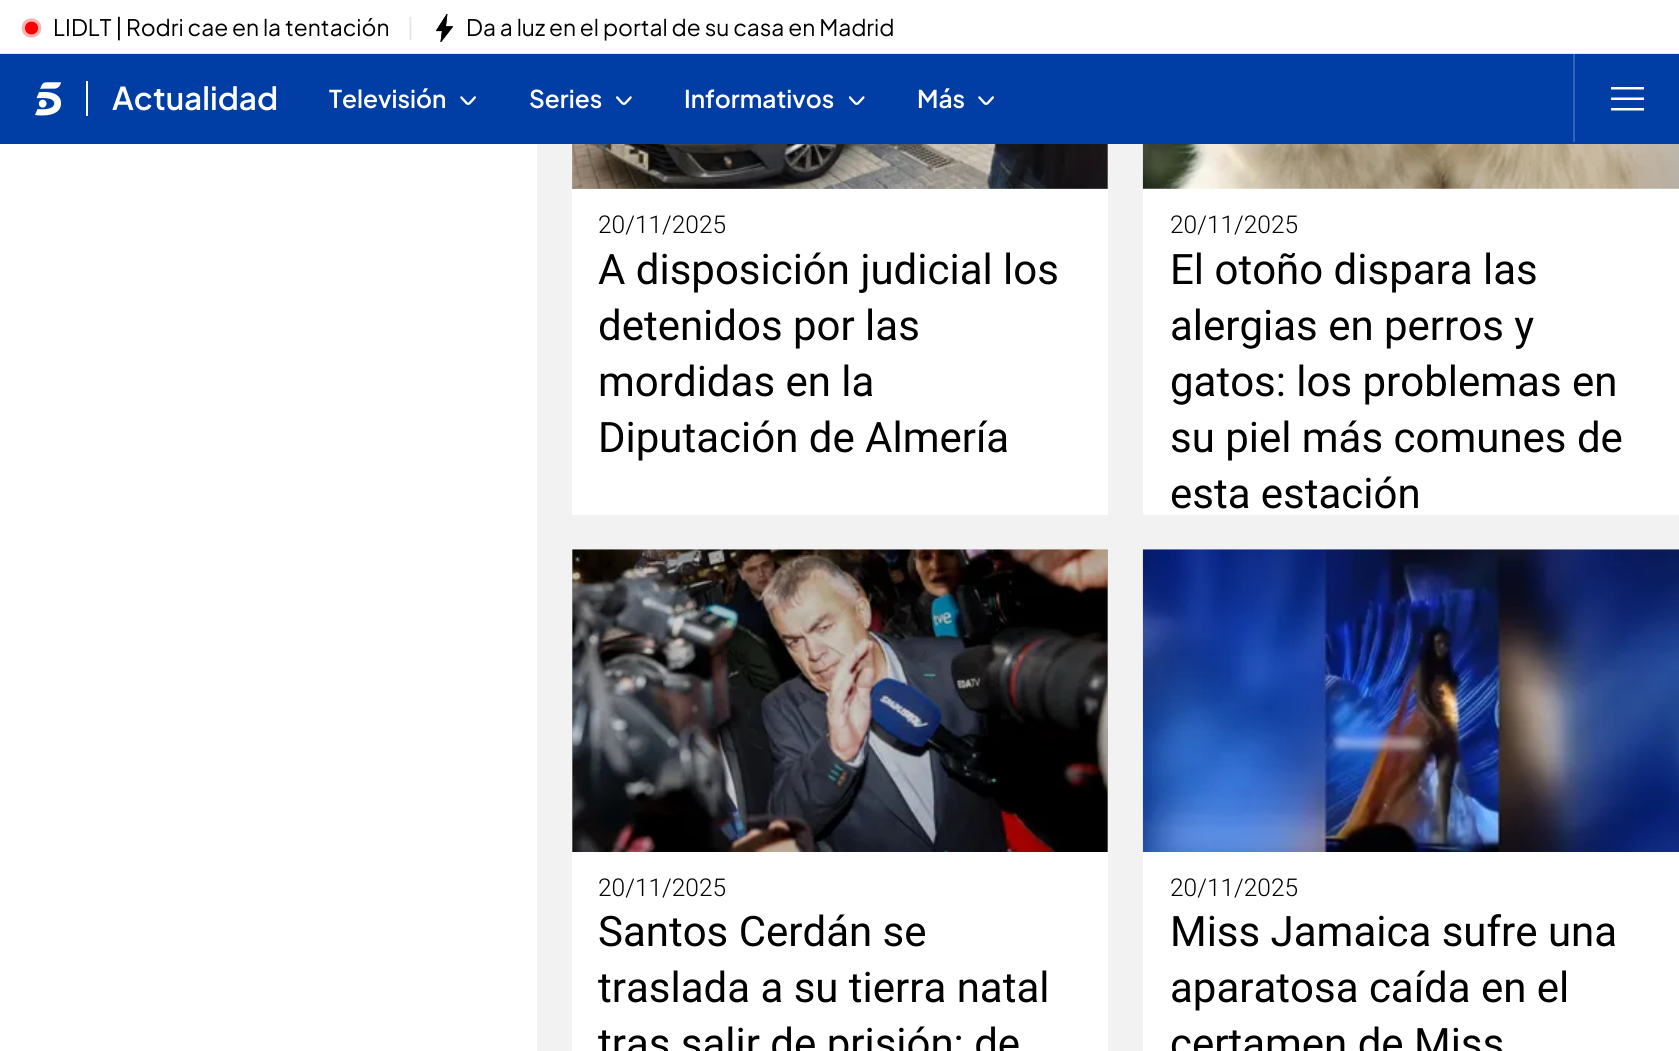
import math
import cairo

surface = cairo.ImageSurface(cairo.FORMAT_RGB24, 1679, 1051)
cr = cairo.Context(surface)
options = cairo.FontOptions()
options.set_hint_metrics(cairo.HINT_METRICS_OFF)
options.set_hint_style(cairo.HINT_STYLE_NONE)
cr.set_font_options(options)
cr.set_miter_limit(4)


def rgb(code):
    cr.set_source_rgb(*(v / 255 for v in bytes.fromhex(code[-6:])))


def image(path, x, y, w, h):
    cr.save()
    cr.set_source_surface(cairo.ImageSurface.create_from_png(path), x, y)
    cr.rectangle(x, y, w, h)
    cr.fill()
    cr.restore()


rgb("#f2f2f2")
cr.paint()
rgb("#ffffff")
cr.rectangle(0, 0, 1679, 54)
cr.fill()
cr.set_source_rgba(0, 0, 0, 0.1)
cr.rectangle(0, 53, 1679, 1)
cr.fill()
rgb("#ff0000")
cr.new_path()
cr.move_to(38, 28)
cr.curve_to(38, 36.5, 25, 36.5, 25, 28)
cr.curve_to(25, 19.5, 38, 19.5, 38, 28)
cr.close_path()
cr.fill_preserve()
cr.set_source_rgba(1, 0, 0, 0.3)
cr.set_line_width(6.6)
cr.stroke()
image("img/1.png", 435, 14, 19, 28)
rgb("#003da5")
cr.rectangle(0, 54, 1679, 90)
cr.fill()
image("img/2.png", 35, 82, 26, 34)
rgb("#ffffff")
cr.rectangle(86, 81, 2, 35)
cr.fill()
image("img/3.png", 460, 96, 16, 9)
image("img/4.png", 616, 96, 16, 9)
image("img/5.png", 849, 96, 16, 9)
image("img/3.png", 978, 96, 16, 9)
rgb("#3364b7")
cr.rectangle(1573, 54, 2, 88)
cr.fill()
rgb("#ffffff")
cr.set_fill_rule(cairo.FILL_RULE_EVEN_ODD)
cr.new_path()
cr.move_to(1644, 89.5)
cr.line_to(1611, 89.5)
cr.line_to(1611, 87)
cr.line_to(1644, 87)
cr.close_path()
cr.move_to(1644, 100)
cr.line_to(1611, 100)
cr.line_to(1611, 97.5)
cr.line_to(1644, 97.5)
cr.close_path()
cr.move_to(1611, 110.5)
cr.line_to(1644, 110.5)
cr.line_to(1644, 108)
cr.line_to(1611, 108)
cr.close_path()
cr.fill()
for x, y, w, h, color in [
    (0, 144, 537, 907, "#ffffff"),
    (572, 189, 536, 326, "#ffffff"),
    (572, 144, 536, 45, "#b2b2b2"),
]:
    rgb(color)
    cr.rectangle(x, y, w, h)
    cr.fill()
image("img/6.png", 572, 144, 536, 45)
rgb("#ffffff")
cr.rectangle(572, 852, 536, 199)
cr.fill()
rgb("#b2b2b2")
cr.rectangle(572, 550, 536, 302)
cr.fill()
image("img/7.png", 572, 549, 536, 303)
rgb("#ffffff")
cr.rectangle(1143, 188, 536, 327)
cr.fill()
image("img/8.png", 1142, 144, 537, 45)
cr.rectangle(1143, 852, 536, 199)
cr.fill()
image("img/9.png", 1142, 549, 537, 303)
cr.select_font_face("Plus Jakarta Sans")
cr.set_font_size(22.75)
rgb("#000000")
cr.move_to(53, 36)
cr.show_text("LIDLT | Rodri cae en la tentación")
rgb("#e5e5e5")
cr.move_to(407, 36)
cr.show_text("|")
rgb("#000000")
cr.move_to(466, 36)
cr.show_text("Da a luz en el portal de su casa en Madrid")
cr.select_font_face("Plus Jakarta Sans SemiBold")
cr.set_font_size(31.5)
rgb("#ffffff")
cr.move_to(112, 110)
cr.show_text("Actualidad")
cr.set_font_size(24.5)
for x, y, s in [
    (329, 108, "Televisión"),
    (529, 108, "Series"),
    (684, 108, "Informativos"),
    (917, 108, "Más"),
]:
    cr.move_to(x, y)
    cr.show_text(s)
cr.select_font_face("Roboto Light")
rgb("#000000")
cr.move_to(598, 233)
cr.show_text("20/11/2025")
cr.select_font_face("Roboto")
cr.set_font_size(42)
for x, y, s in [
    (598, 284, "A disposición judicial los"),
    (598, 340, "detenidos por las"),
    (598, 396, "mordidas en la"),
    (598, 452, "Diputación de Almería"),
]:
    cr.move_to(x, y)
    cr.show_text(s)
cr.select_font_face("Roboto Light")
cr.set_font_size(24.5)
cr.move_to(598, 896)
cr.show_text("20/11/2025")
cr.select_font_face("Roboto")
cr.set_font_size(42)
for x, y, s in [
    (598, 946, "Santos Cerdán se"),
    (598, 1002, "traslada a su tierra natal"),
    (598, 1058, "tras salir de prisión: de"),
]:
    cr.move_to(x, y)
    cr.show_text(s)
cr.select_font_face("Roboto Light")
cr.set_font_size(24.5)
cr.move_to(1170, 233)
cr.show_text("20/11/2025")
cr.select_font_face("Roboto")
cr.set_font_size(42)
for x, y, s in [
    (1170, 284, "El otoño dispara las"),
    (1170, 340, "alergias en perros y"),
    (1170, 396, "gatos: los problemas en"),
    (1170, 452, "su piel más comunes de"),
    (1170, 508, "esta estación"),
]:
    cr.move_to(x, y)
    cr.show_text(s)
cr.select_font_face("Roboto Light")
cr.set_font_size(24.5)
cr.move_to(1170, 896)
cr.show_text("20/11/2025")
cr.select_font_face("Roboto")
cr.set_font_size(42)
for x, y, s in [
    (1170, 946, "Miss Jamaica sufre una"),
    (1170, 1002, "aparatosa caída en el"),
    (1170, 1058, "certamen de Miss"),
]:
    cr.move_to(x, y)
    cr.show_text(s)
surface.write_to_png("page.png")
